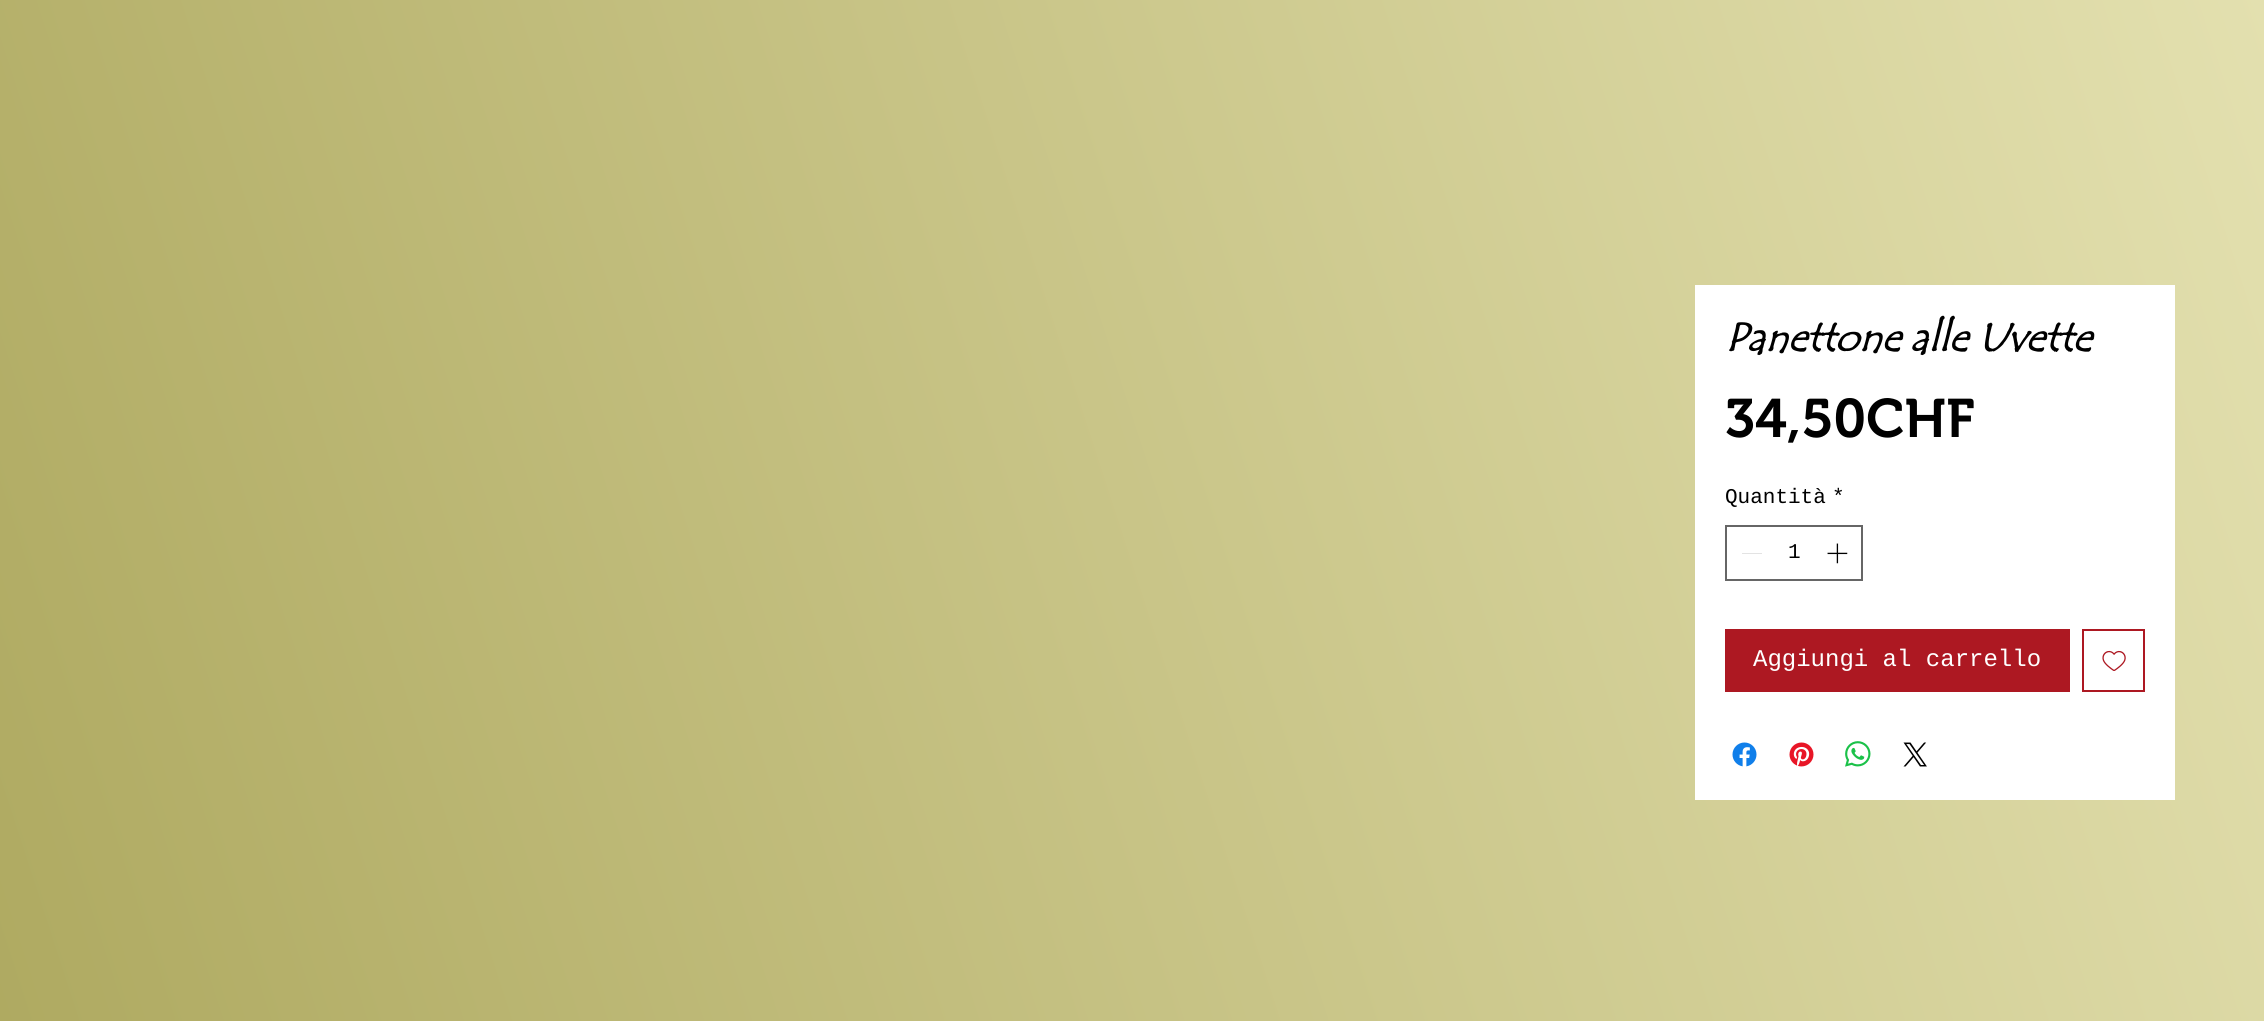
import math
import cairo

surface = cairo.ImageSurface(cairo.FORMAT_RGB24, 2264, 1021)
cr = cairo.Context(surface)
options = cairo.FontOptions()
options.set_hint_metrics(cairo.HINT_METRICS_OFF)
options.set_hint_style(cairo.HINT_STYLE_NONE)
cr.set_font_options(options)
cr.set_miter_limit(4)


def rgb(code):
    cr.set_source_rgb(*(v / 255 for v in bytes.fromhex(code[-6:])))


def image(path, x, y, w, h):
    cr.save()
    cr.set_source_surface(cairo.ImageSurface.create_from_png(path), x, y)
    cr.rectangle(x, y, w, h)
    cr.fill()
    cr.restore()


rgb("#ffffff")
cr.paint()
gradient = cairo.LinearGradient(-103, 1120, 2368, 317)
gradient.add_color_stop_rgba(0, 0.675, 0.655, 0.365, 1)
gradient.add_color_stop_rgba(1, 0.89, 0.878, 0.686, 1)
cr.set_source(gradient)
cr.rectangle(0, 0, 2264, 1021)
cr.fill()
rgb("#ffffff")
cr.rectangle(1695, 285, 480, 515)
cr.fill()
cr.rectangle(1726, 526, 136, 54)
rgb("#666666")
cr.stroke()
rgb("#e3e3e3")
cr.rectangle(1742, 553, 20, 1)
cr.fill()
image("img/1.png", 1827, 543, 21, 21)
rgb("#ad1822")
cr.rectangle(1725, 629, 345, 63)
cr.fill()
cr.rectangle(2083, 630, 61, 61)
cr.stroke()
image("img/2.png", 2102, 650, 24, 21)
image("img/3.png", 1732, 742, 25, 25)
image("img/4.png", 1789, 742, 25, 25)
image("img/5.png", 1845, 741, 26, 26)
image("img/6.png", 1903, 742, 24, 25)
cr.select_font_face("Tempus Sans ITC", cairo.FONT_SLANT_ITALIC, cairo.FONT_WEIGHT_BOLD)
cr.set_font_size(40.5)
rgb("#000000")
cr.move_to(1725, 351)
cr.show_text("Panettone alle Uvette")
cr.select_font_face("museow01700 SemiBold")
cr.set_font_size(54)
cr.move_to(1725, 437)
cr.show_text("34,50CHF")
cr.select_font_face("Liberation Mono")
cr.set_font_size(21)
for x, y, s in [
    (1725, 503, "Quantità"),
    (1832, 503, "*"),
    (1788, 558, "1"),
]:
    cr.move_to(x, y)
    cr.show_text(s)
cr.set_font_size(24)
rgb("#ffffff")
cr.move_to(1753, 666)
cr.show_text("Aggiungi al carrello")
surface.write_to_png("page.png")
